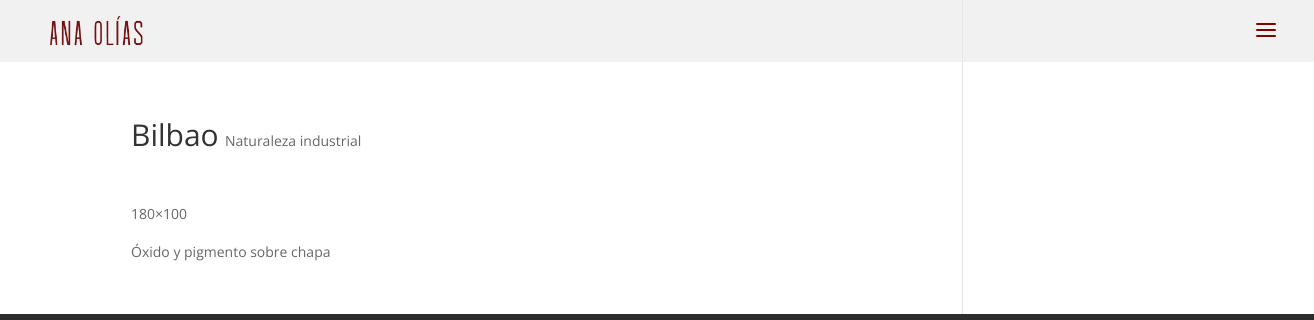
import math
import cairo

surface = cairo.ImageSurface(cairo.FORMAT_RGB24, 1314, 320)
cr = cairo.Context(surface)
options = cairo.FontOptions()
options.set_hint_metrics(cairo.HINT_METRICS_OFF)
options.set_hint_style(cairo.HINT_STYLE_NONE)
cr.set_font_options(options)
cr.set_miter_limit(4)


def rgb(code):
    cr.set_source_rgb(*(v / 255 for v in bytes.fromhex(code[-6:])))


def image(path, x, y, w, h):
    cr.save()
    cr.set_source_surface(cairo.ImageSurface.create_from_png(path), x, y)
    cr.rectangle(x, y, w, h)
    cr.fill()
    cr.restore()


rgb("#ffffff")
cr.paint()
rgb("#f1f1f1")
cr.rectangle(0, 0, 1314, 62)
cr.fill()
image("img/1.png", 50, 15, 93, 31)
image("img/2.png", 1256, 23, 20, 14)
for x, y, w, h, color in [
    (962, 62, 1, 252, "#e2e2e2"),
    (962, 0, 1, 62, "#e7e7e7"),
    (0, 314, 1314, 6, "#2d2d2d"),
]:
    rgb(color)
    cr.rectangle(x, y, w, h)
    cr.fill()
cr.select_font_face("Open Sans")
cr.set_font_size(30)
rgb("#333333")
cr.move_to(131, 146)
cr.show_text("Bilbao")
cr.set_font_size(14)
rgb("#666666")
for x, y, s in [
    (225, 146, "Naturaleza industrial"),
    (131, 219, "180×100"),
    (131, 257, "Óxido y pigmento sobre chapa"),
]:
    cr.move_to(x, y)
    cr.show_text(s)
surface.write_to_png("page.png")
